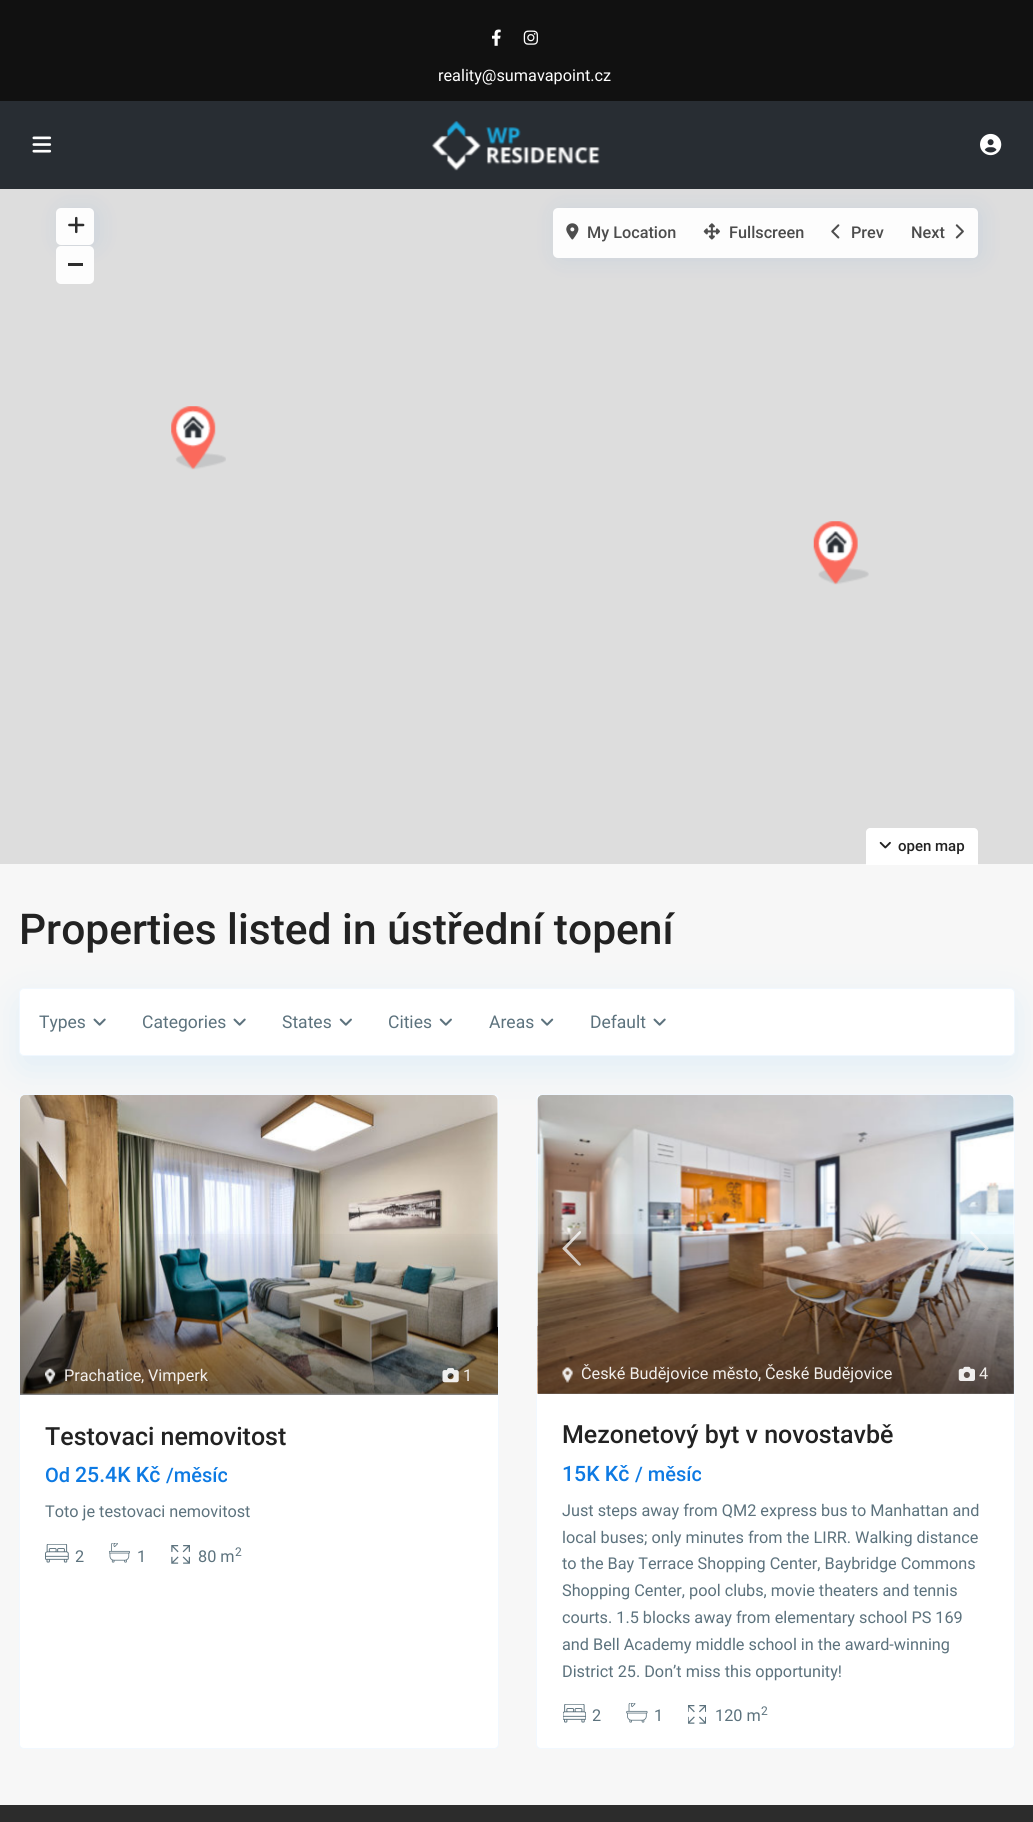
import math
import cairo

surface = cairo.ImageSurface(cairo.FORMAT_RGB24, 1033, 1822)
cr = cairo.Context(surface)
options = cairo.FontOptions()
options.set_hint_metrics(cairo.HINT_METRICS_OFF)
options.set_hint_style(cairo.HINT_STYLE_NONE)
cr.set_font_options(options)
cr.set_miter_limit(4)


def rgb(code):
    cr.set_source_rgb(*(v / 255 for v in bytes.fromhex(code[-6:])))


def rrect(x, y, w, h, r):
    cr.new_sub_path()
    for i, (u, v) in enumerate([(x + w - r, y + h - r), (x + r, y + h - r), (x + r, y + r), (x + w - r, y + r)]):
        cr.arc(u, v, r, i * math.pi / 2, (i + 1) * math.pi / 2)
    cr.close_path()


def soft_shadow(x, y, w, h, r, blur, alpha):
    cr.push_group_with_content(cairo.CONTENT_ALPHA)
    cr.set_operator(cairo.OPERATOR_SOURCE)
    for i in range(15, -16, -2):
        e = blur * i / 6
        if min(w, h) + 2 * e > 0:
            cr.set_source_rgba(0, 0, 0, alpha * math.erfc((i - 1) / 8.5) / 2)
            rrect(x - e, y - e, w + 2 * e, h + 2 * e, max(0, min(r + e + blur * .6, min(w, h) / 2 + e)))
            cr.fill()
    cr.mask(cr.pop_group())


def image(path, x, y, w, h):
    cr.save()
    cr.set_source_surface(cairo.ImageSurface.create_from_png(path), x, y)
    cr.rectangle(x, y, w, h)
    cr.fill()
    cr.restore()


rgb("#f7f7f7")
cr.paint()
rgb("#111111")
cr.rectangle(0, 0, 1033, 101)
cr.fill()
image("img/1.png", 492, 29, 9, 17)
image("img/2.png", 523, 30, 15, 15)
rgb("#dddddd")
cr.rectangle(0, 189, 1033, 675)
cr.fill()
rgb("#006ee1")
soft_shadow(60, 209, 38, 37, 5, 12.5, 0.08)
soft_shadow(556, 209, 425, 50, 5, 12.5, 0.08)
rgb("#282d33")
cr.rectangle(0, 101, 1033, 88)
cr.fill()
image("img/3.png", 32, 136, 20, 17)
image("img/4.png", 431, 120, 169, 51)
image("img/5.png", 980, 133, 22, 23)
image("img/6.png", 171, 406, 55, 64)
image("img/7.png", 813, 521, 56, 64)
rgb("#fdfdfd")
rrect(56, 208, 38, 37, 5)
cr.fill()
image("img/8.png", 68, 216, 17, 18)
rrect(553, 208, 425, 50, 5)
cr.fill()
image("img/9.png", 566, 223, 13, 17)
image("img/10.png", 703, 223, 17, 17)
image("img/11.png", 831, 224, 9, 15)
image("img/12.png", 955, 224, 9, 15)
cr.set_source_rgba(1, 1, 1, 0.95)
rrect(56, 246, 38, 38, 5)
cr.fill()
rgb("#2d2d2d")
cr.rectangle(68, 263, 15, 3)
cr.fill()
rgb("#ffffff")
cr.new_path()
cr.move_to(870, 828)
cr.line_to(974, 828)
cr.curve_to(976, 828, 978, 830, 978, 832)
cr.line_to(978, 865)
cr.line_to(866, 865)
cr.line_to(866, 832)
cr.curve_to(866, 830, 868, 828, 870, 828)
cr.close_path()
cr.fill()
image("img/13.png", 879, 841, 12, 8)
rgb("#0798ff")
soft_shadow(19, 1000, 996, 69, 5, 19.5, 0.09)
rgb("#ffffff")
rrect(19.5, 988.5, 995, 67, 4.5)
cr.fill_preserve()
rgb("#f1f8ff")
cr.set_line_width(1)
cr.stroke()
image("img/14.png", 93, 1018, 13, 8)
image("img/14.png", 233, 1018, 13, 8)
image("img/15.png", 339, 1018, 13, 8)
image("img/15.png", 439, 1018, 13, 8)
image("img/16.png", 541, 1018, 13, 8)
image("img/14.png", 653, 1018, 13, 8)
rgb("#ffffff")
rrect(19.5, 1094.5, 479, 654, 4.5)
cr.fill_preserve()
rgb("#f1f8ff")
cr.stroke()
image("img/17.png", 20, 1095, 478, 299)
gradient = cairo.LinearGradient(259, 1395, 259, 1095)
gradient.add_color_stop_rgba(0, 0, 0, 0, 0.5)
gradient.add_color_stop_rgba(0.56, 0, 0, 0, 0)
cr.set_source(gradient)
cr.rectangle(20, 1234, 478, 161)
cr.fill()
image("img/18.png", 45, 1368, 11, 16)
image("img/19.png", 442, 1368, 17, 15)
image("img/20.png", 45, 1544, 24, 19)
image("img/21.png", 109, 1543, 21, 20)
image("img/22.png", 171, 1545, 19, 19)
rgb("#ffffff")
rrect(536.5, 1094.5, 478, 654, 4.5)
cr.fill_preserve()
rgb("#f1f8ff")
cr.stroke()
image("img/23.png", 537, 1095, 477, 299)
cr.set_source_rgba(1, 1, 1, 0.8)
cr.new_path()
cr.move_to(580.5, 1263.5)
cr.line_to(581, 1264.5)
cr.curve_to(580, 1268, 576.5, 1263, 576, 1262.5)
cr.line_to(562.5, 1249)
cr.line_to(562.5, 1248)
cr.line_to(579, 1231.5)
cr.line_to(580, 1231)
cr.curve_to(583, 1232, 578.5, 1235.5, 578, 1236)
cr.line_to(566.5, 1248.5)
cr.close_path()
cr.fill()
cr.new_path()
cr.move_to(970.5, 1263.5)
cr.line_to(985, 1248.5)
cr.line_to(973, 1236)
cr.curve_to(972.5, 1235.5, 968, 1232, 971.5, 1231)
cr.line_to(972, 1231.5)
cr.line_to(988.5, 1248)
cr.line_to(988.5, 1249)
cr.line_to(975, 1262.5)
cr.curve_to(975, 1263, 971, 1268, 970, 1264.5)
cr.close_path()
cr.fill()
gradient = cairo.LinearGradient(776, 1394, 776, 1095)
gradient.add_color_stop_rgba(0, 0, 0, 0, 0.5)
gradient.add_color_stop_rgba(0.56, 0, 0, 0, 0)
cr.set_source(gradient)
cr.rectangle(538, 1234, 476, 160)
cr.fill()
image("img/24.png", 562, 1367, 11, 16)
image("img/25.png", 958, 1366, 17, 15)
image("img/26.png", 563, 1704, 23, 19)
image("img/27.png", 626, 1703, 22, 20)
image("img/28.png", 688, 1705, 18, 19)
rgb("#2c2c2c")
cr.rectangle(0, 1805, 1033, 17)
cr.fill()
cr.select_font_face("Roboto")
cr.set_font_size(16.25)
rgb("#ffffff")
cr.move_to(438, 81)
cr.show_text("reality@sumavapoint.cz")
cr.select_font_face("Roboto Medium")
rgb("#4c4c4c")
for x, y, s in [
    (587, 238, "My Location"),
    (729, 238, "Fullscreen"),
    (851, 238, "Prev"),
    (911, 238, "Next"),
]:
    cr.move_to(x, y)
    cr.show_text(s)
cr.set_font_size(15)
rgb("#222222")
cr.move_to(898, 851)
cr.show_text("open map")
cr.set_font_size(42.5)
cr.move_to(19, 944)
cr.show_text("Properties listed in ústřední topení")
cr.select_font_face("Roboto")
cr.set_font_size(17.5)
rgb("#5c727d")
for x, y, s in [
    (39, 1028, "Types"),
    (142, 1028, "Categories"),
    (282, 1028, "States"),
    (388, 1028, "Cities"),
    (489, 1028, "Areas"),
    (590, 1028, "Default"),
]:
    cr.move_to(x, y)
    cr.show_text(s)
cr.set_font_size(16.25)
rgb("#f2efec")
for x, y, s in [
    (64, 1381, "Prachatice"),
    (141, 1381, ","),
    (148, 1381, "Vimperk"),
    (463, 1381, "1"),
]:
    cr.move_to(x, y)
    cr.show_text(s)
cr.select_font_face("Roboto Medium")
cr.set_font_size(25)
rgb("#222222")
cr.move_to(45, 1445)
cr.show_text("Testovaci nemovitost")
cr.set_font_size(20)
rgb("#0d7ae3")
cr.move_to(45, 1482)
cr.show_text("Od")
cr.set_font_size(21.25)
cr.move_to(75, 1482)
cr.show_text("25.4K Kč")
cr.set_font_size(20)
cr.move_to(166, 1482)
cr.show_text("/měsíc")
cr.select_font_face("Roboto")
cr.set_font_size(16.25)
rgb("#5c727d")
for x, y, s in [
    (45, 1517, "Toto je testovaci nemovitost"),
    (75, 1562, "2"),
    (137, 1562, "1"),
    (198, 1562, "80 m"),
]:
    cr.move_to(x, y)
    cr.show_text(s)
cr.set_font_size(12)
cr.move_to(235, 1556)
cr.show_text("2")
cr.set_font_size(16.25)
rgb("#f2efec")
for x, y, s in [
    (581, 1379, "České Budějovice město"),
    (758, 1379, ","),
    (765, 1379, "České Budějovice"),
    (979, 1379, "4"),
]:
    cr.move_to(x, y)
    cr.show_text(s)
cr.select_font_face("Roboto Medium")
cr.set_font_size(25)
rgb("#222222")
cr.move_to(562, 1443)
cr.show_text("Mezonetový byt v novostavbě")
cr.set_font_size(21.25)
rgb("#0d7ae3")
cr.move_to(562, 1481)
cr.show_text("15K Kč")
cr.set_font_size(20)
cr.move_to(635, 1481)
cr.show_text("/ měsíc")
cr.select_font_face("Roboto")
cr.set_font_size(16.25)
rgb("#5c727d")
for x, y, s in [
    (562, 1516, "Just steps away from QM2 express bus to Manhattan and"),
    (562, 1543, "local buses; only minutes from the LIRR. Walking distance"),
    (562, 1569, "to the Bay Terrace Shopping Center, Baybridge Commons"),
    (562, 1596, "Shopping Center, pool clubs, movie theaters and tennis"),
    (562, 1623, "courts. 1.5 blocks away from elementary school PS 169"),
    (562, 1650, "and Bell Academy middle school in the award-winning"),
    (562, 1677, "District 25. Don’t miss this opportunity!"),
    (592, 1721, "2"),
    (654, 1721, "1"),
    (715, 1721, "120 m"),
]:
    cr.move_to(x, y)
    cr.show_text(s)
cr.set_font_size(12)
cr.move_to(761, 1715)
cr.show_text("2")
surface.write_to_png("page.png")
